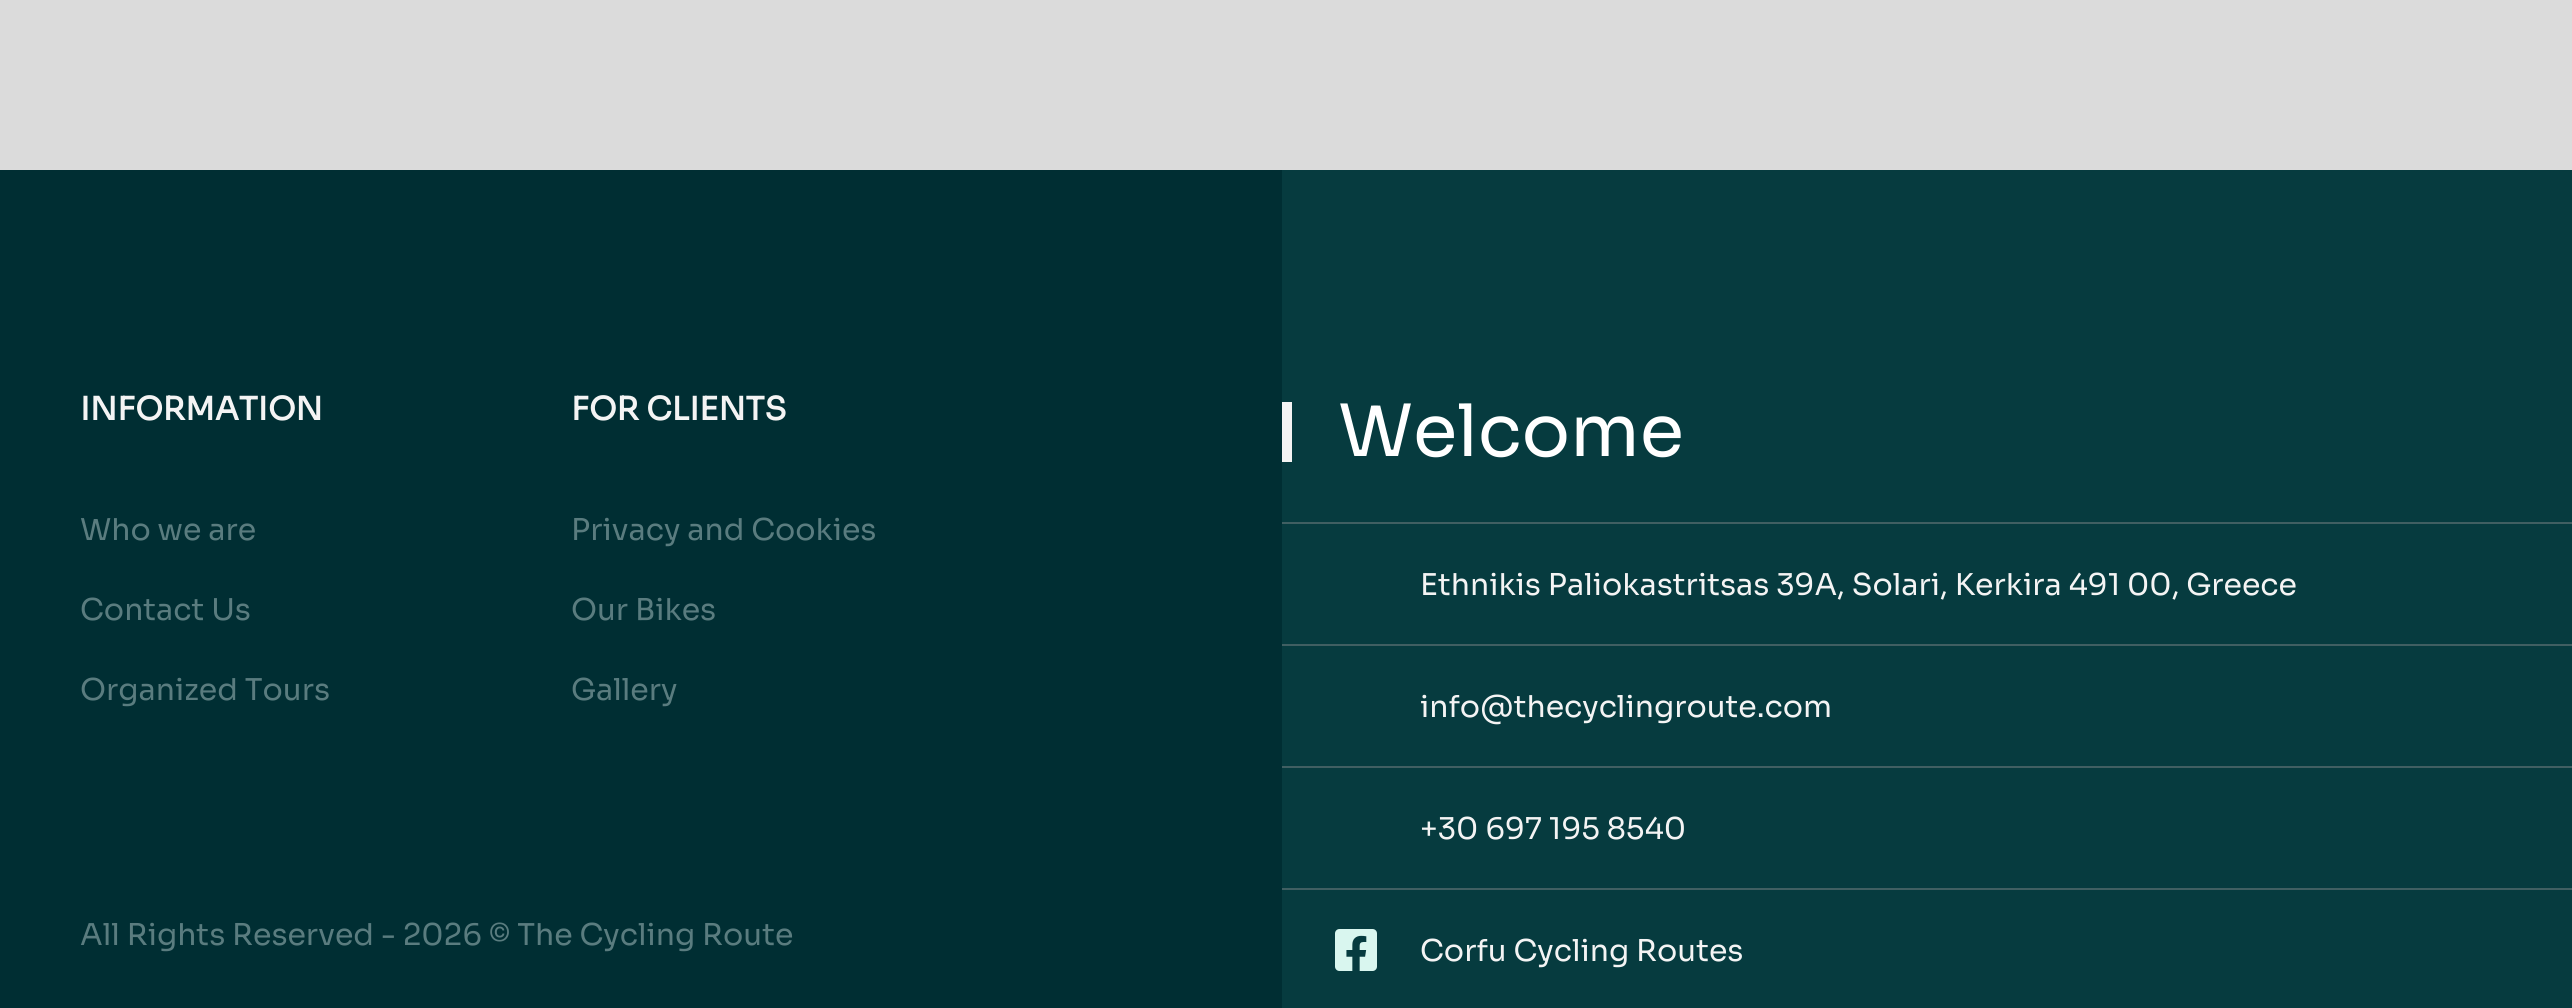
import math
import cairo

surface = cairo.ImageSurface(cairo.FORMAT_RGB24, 2572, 1008)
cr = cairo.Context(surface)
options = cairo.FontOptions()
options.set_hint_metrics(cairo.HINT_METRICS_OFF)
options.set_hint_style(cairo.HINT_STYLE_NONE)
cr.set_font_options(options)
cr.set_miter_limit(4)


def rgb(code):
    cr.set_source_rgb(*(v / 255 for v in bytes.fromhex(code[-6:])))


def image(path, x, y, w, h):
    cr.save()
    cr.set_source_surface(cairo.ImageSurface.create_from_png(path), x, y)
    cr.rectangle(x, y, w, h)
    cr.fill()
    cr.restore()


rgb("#dbdbdb")
cr.paint()
for x, y, w, h, color in [
    (0, 170, 1282, 838, "#002e33"),
    (1282, 170, 1290, 838, "#063b3f"),
    (1282, 402, 10, 60, "#f4f4f4"),
    (1282, 522, 1290, 2, "#405f62"),
    (1282, 644, 1290, 2, "#405f62"),
    (1282, 766, 1290, 2, "#405f62"),
    (1282, 888, 1290, 2, "#405f62"),
]:
    rgb(color)
    cr.rectangle(x, y, w, h)
    cr.fill()
image("img/1.png", 1335, 929, 42, 42)
cr.select_font_face("Sora", cairo.FONT_SLANT_NORMAL, cairo.FONT_WEIGHT_BOLD)
cr.set_font_size(32)
rgb("#f4f4f4")
cr.move_to(80, 420)
cr.show_text("INFORMATION")
cr.select_font_face("Sora")
cr.set_font_size(30)
rgb("#5a7c7f")
for x, y, s in [
    (80, 540, "Who we are"),
    (80, 620, "Contact Us"),
    (80, 700, "Organized Tours"),
]:
    cr.move_to(x, y)
    cr.show_text(s)
cr.select_font_face("Sora", cairo.FONT_SLANT_NORMAL, cairo.FONT_WEIGHT_BOLD)
cr.set_font_size(32)
rgb("#f4f4f4")
cr.move_to(571, 420)
cr.show_text("FOR CLIENTS")
cr.select_font_face("Sora")
cr.set_font_size(30)
rgb("#5a7c7f")
for x, y, s in [
    (571, 540, "Privacy and Cookies"),
    (571, 620, "Our Bikes"),
    (571, 700, "Gallery"),
    (80, 945, "All Rights Reserved - 2026 © The Cycling Route"),
]:
    cr.move_to(x, y)
    cr.show_text(s)
cr.set_font_size(72)
rgb("#ffffff")
cr.move_to(1338, 456)
cr.show_text("Welcome")
cr.set_font_size(30)
rgb("#f4f4f4")
for x, y, s in [
    (1420, 595, "Ethnikis Paliokastritsas 39A, Solari, Kerkira 491 00, Greece"),
    (1420, 717, "info@thecyclingroute.com"),
    (1420, 839, "+30 697 195 8540"),
    (1420, 961, "Corfu Cycling Routes"),
]:
    cr.move_to(x, y)
    cr.show_text(s)
surface.write_to_png("page.png")
